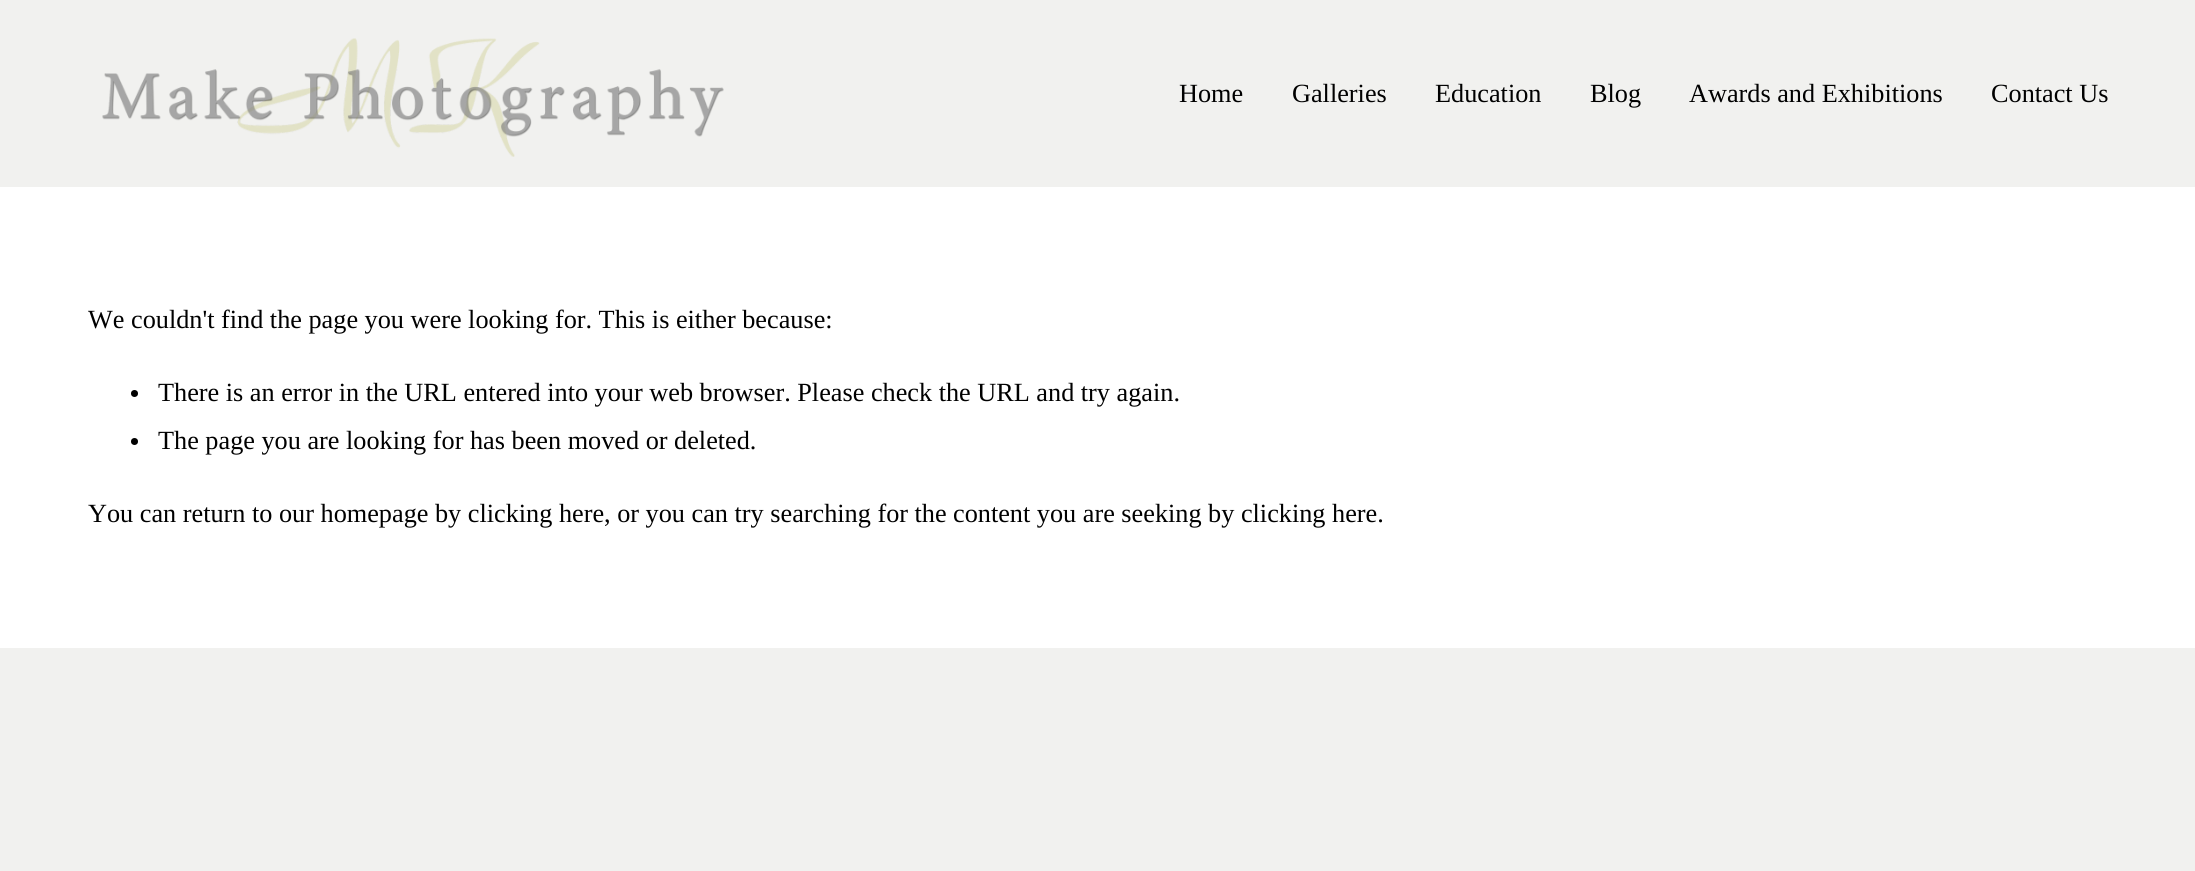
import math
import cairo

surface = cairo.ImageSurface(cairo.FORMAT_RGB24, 2195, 871)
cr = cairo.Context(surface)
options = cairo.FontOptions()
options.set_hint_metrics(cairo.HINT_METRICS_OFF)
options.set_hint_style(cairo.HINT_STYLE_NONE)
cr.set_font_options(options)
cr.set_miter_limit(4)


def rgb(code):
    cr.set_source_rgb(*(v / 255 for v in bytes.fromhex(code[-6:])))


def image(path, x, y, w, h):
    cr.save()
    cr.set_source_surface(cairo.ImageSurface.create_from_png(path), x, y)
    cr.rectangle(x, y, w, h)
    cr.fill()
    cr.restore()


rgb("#ffffff")
cr.paint()
rgb("#f1f1ef")
cr.rectangle(0, 0, 2195, 187)
cr.fill()
image("img/1.png", 102, 38, 622, 119)
rgb("#000000")
cr.arc(134.5, 393.5, 3.5, 0, 2 * math.pi)
cr.fill()
cr.arc(134.5, 441.5, 3.5, 0, 2 * math.pi)
cr.fill()
rgb("#f1f1ef")
cr.rectangle(0, 648, 2195, 223)
cr.fill()
cr.select_font_face("Liberation Serif")
cr.set_font_size(26.25)
rgb("#000000")
for x, y, s in [
    (1179, 102, "Home"),
    (1292, 102, "Galleries"),
    (1435, 102, "Education"),
    (1590, 102, "Blog"),
    (1689, 102, "Awards and Exhibitions"),
    (1991, 102, "Contact Us"),
    (88, 328, "We couldn't find the page you were looking for. This is either because:"),
    (158, 401, "There is an error in the URL entered into your web browser. Please check the URL and try again."),
    (158, 449, "The page you are looking for has been moved or deleted."),
    (88, 522, "You can return to our homepage by clicking here, or you can try searching for the"),
    (953, 522, "content you are seeking by clicking here."),
]:
    cr.move_to(x, y)
    cr.show_text(s)
surface.write_to_png("page.png")
